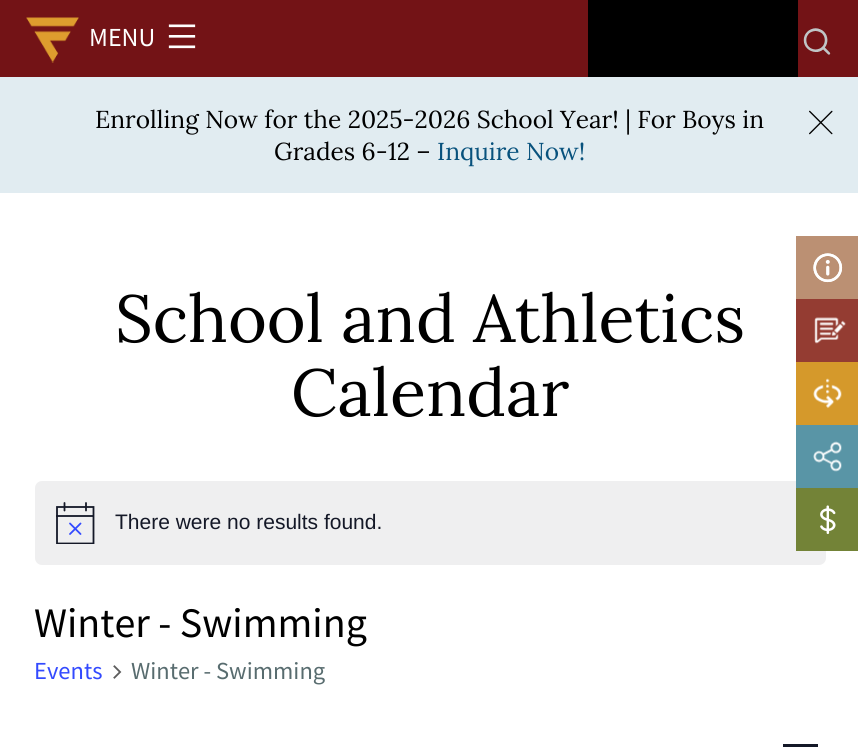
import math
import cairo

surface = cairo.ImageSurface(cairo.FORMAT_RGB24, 858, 747)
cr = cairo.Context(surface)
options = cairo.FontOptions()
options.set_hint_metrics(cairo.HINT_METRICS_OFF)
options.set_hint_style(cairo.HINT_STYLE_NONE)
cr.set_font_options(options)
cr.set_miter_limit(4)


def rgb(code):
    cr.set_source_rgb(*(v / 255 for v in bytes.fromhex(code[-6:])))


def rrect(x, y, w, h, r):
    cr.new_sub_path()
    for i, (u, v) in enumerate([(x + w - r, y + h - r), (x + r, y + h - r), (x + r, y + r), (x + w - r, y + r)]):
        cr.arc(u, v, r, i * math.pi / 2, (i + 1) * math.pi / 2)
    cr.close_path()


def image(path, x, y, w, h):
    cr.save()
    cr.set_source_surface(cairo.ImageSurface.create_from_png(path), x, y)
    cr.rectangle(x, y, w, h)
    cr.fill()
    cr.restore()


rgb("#ffffff")
cr.paint()
rgb("#731316")
cr.rectangle(0, 0, 858, 77)
cr.fill()
image("img/1.png", 26, 17, 53, 46)
image("img/2.png", 168, 24, 28, 25)
rgb("#000000")
cr.rectangle(588, 0, 210, 77)
cr.fill()
image("img/3.png", 803, 28, 28, 27)
rgb("#e1ecf1")
cr.rectangle(0, 77, 858, 116)
cr.fill()
image("img/4.png", 809, 110, 24, 25)
rgb("#efeff0")
rrect(35, 481, 791, 84, 7)
cr.fill()
cr.save()
cr.rectangle(56, 502, 39, 42)
cr.clip()
cr.new_path()
cr.move_to(57, 507)
cr.line_to(93.5, 507)
cr.line_to(93.5, 543.5)
cr.line_to(57, 543.5)
cr.close_path()
rgb("#141827")
cr.set_line_width(1.8)
cr.stroke()
cr.restore()
cr.new_path()
cr.move_to(70, 523.5)
cr.line_to(80.5, 534)
cr.move_to(80.5, 523.5)
cr.line_to(70, 534)
rgb("#334aff")
cr.set_line_width(1.8)
cr.set_line_cap(cairo.LINE_CAP_ROUND)
cr.stroke()
cr.new_path()
cr.move_to(64.5, 503)
cr.line_to(64.5, 510.5)
cr.move_to(86, 503)
cr.line_to(86, 510.5)
rgb("#141827")
cr.stroke()
cr.set_source_rgba(0.078, 0.094, 0.153, 0.9)
cr.rectangle(56, 515, 38, 2)
cr.fill()
image("img/5.png", 113, 665, 9, 14)
rgb("#141827")
cr.rectangle(783, 744, 35, 3)
cr.fill()
rgb("#bb9073")
cr.rectangle(796, 236, 62, 63)
cr.fill()
image("img/6.png", 813, 253, 30, 30)
rgb("#943c32")
cr.rectangle(796, 299, 62, 63)
cr.fill()
image("img/7.png", 814, 317, 32, 27)
rgb("#d5992b")
cr.rectangle(796, 362, 62, 63)
cr.fill()
image("img/8.png", 813, 378, 29, 31)
rgb("#5995a6")
cr.rectangle(796, 425, 62, 63)
cr.fill()
image("img/9.png", 813, 441, 29, 31)
rgb("#738337")
cr.rectangle(796, 488, 62, 63)
cr.fill()
image("img/10.png", 820, 505, 16, 29)
cr.select_font_face("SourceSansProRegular")
cr.set_font_size(26)
rgb("#ffffff")
cr.move_to(89, 46)
cr.show_text("MENU")
cr.select_font_face("Lora")
cr.set_font_size(24.5)
rgb("#000000")
cr.move_to(95, 128)
cr.show_text("Enrolling Now for the 2025-2026 School Year! | For Boys in")
cr.move_to(274, 160)
cr.show_text("Grades 6-12 –")
rgb("#08527d")
cr.move_to(437, 160)
cr.show_text("Inquire Now!")
cr.set_font_size(66.5)
rgb("#000000")
cr.move_to(115, 342)
cr.show_text("School and Athletics")
cr.move_to(291, 416)
cr.show_text("Calendar")
cr.select_font_face("Liberation Sans")
cr.set_font_size(21)
rgb("#141827")
cr.move_to(115, 529)
cr.show_text("There were no results found.")
cr.select_font_face("SourceSansProRegular")
cr.set_font_size(42)
rgb("#000000")
cr.move_to(34, 637)
cr.show_text("Winter - Swimming")
cr.set_font_size(24.5)
rgb("#334aff")
cr.move_to(34, 679)
cr.show_text("Events")
rgb("#586c6f")
cr.move_to(131, 679)
cr.show_text("Winter - Swimming")
surface.write_to_png("page.png")
